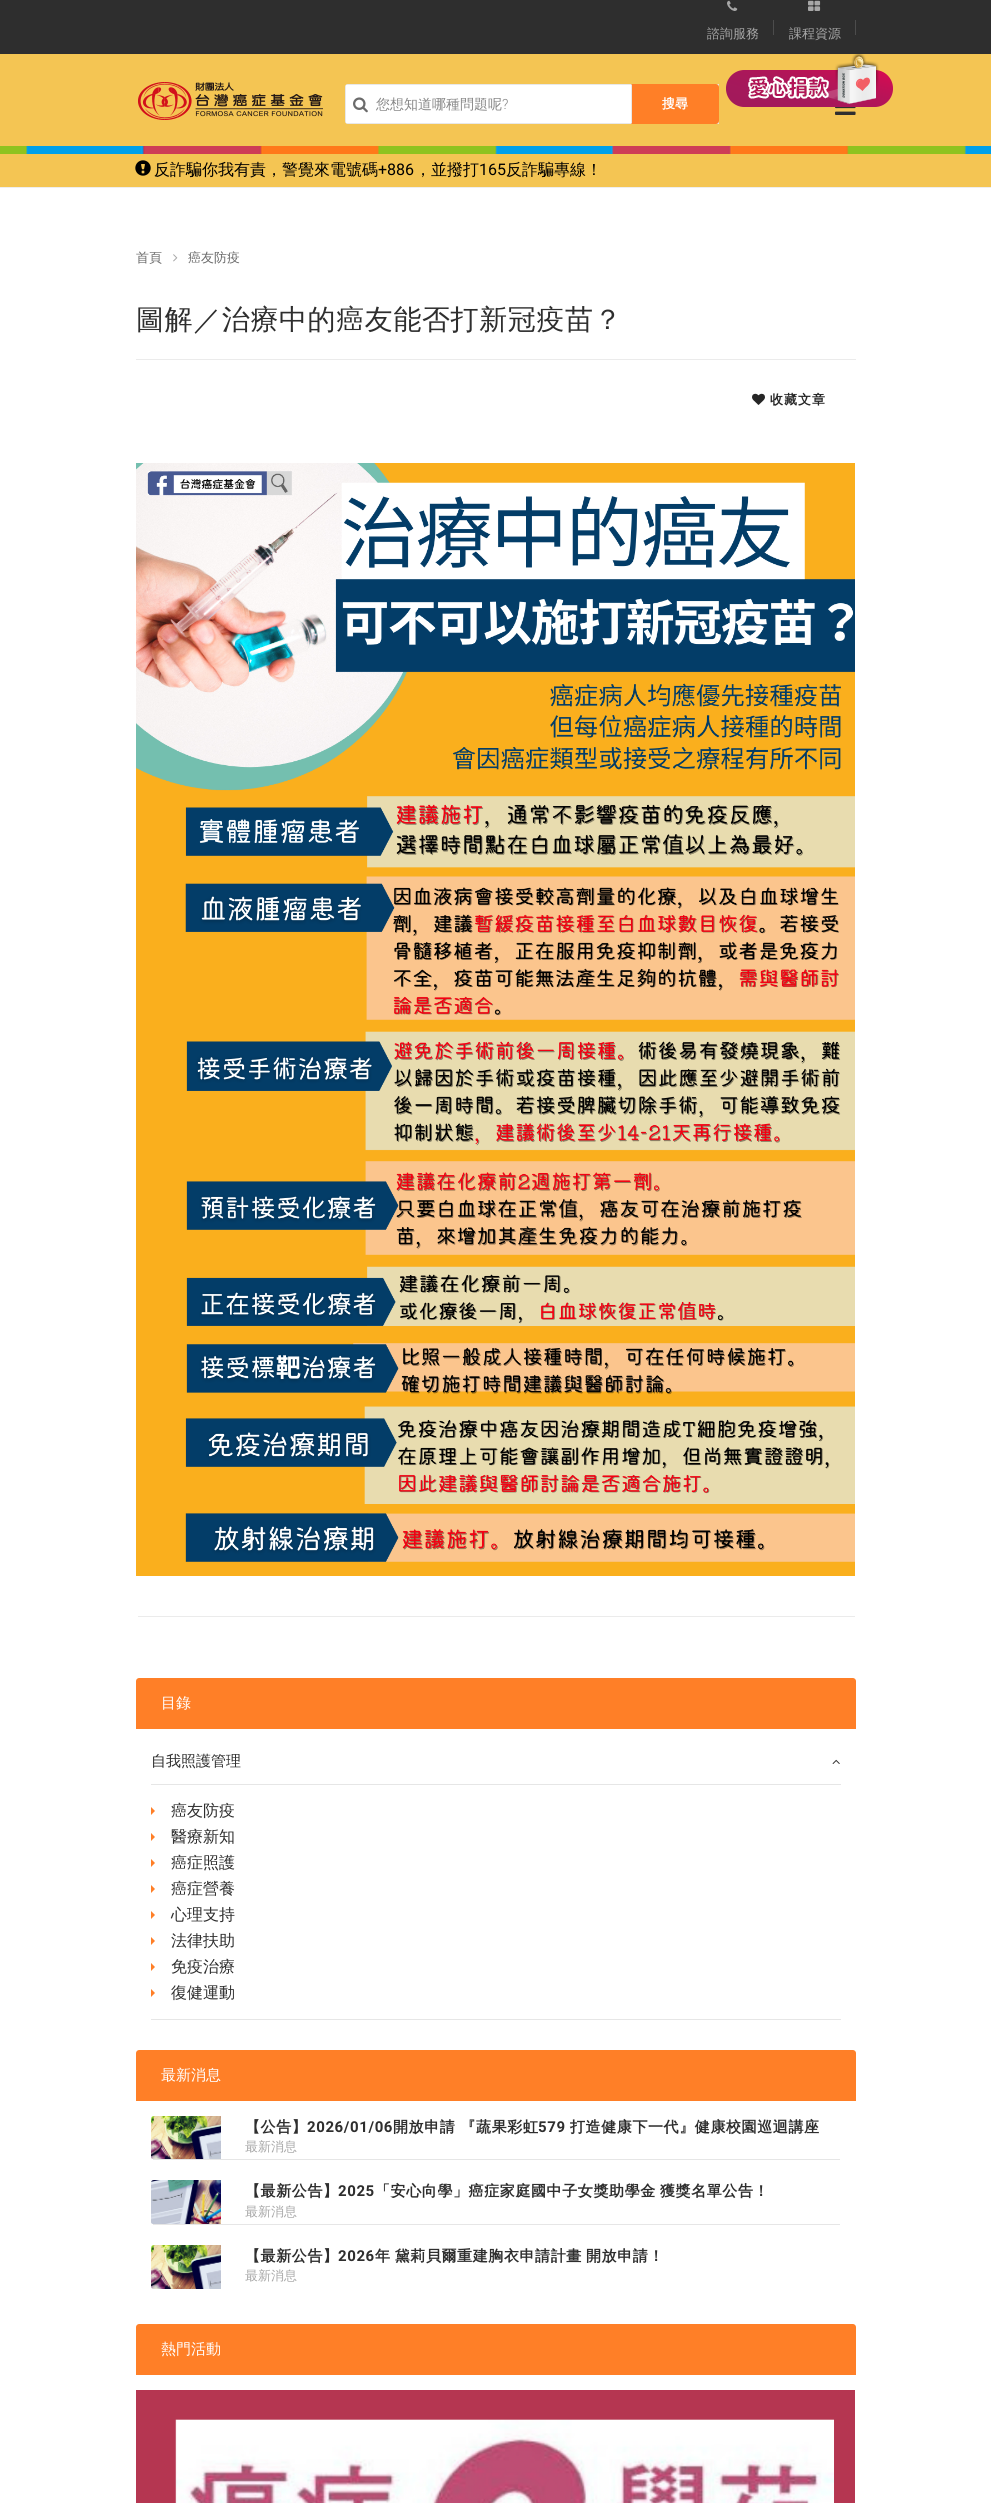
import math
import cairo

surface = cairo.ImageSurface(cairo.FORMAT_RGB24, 991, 2503)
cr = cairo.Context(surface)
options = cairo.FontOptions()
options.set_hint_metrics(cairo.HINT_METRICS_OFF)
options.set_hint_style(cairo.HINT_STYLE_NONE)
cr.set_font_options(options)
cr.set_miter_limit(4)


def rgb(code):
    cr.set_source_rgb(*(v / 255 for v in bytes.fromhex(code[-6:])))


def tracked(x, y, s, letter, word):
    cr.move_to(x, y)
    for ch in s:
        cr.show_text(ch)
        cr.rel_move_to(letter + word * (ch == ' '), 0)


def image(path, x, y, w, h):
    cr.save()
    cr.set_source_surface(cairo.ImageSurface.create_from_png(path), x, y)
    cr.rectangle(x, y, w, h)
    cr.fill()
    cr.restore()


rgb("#ffffff")
cr.paint()
rgb("#eeeeee")
cr.rectangle(0, 187, 991, 1)
cr.fill()
rgb("#2e2e2e")
cr.rectangle(0, 0, 991, 54)
cr.fill()
image("img/1.png", 727, 0, 11, 11)
rgb("#4c4c4c")
cr.rectangle(773, 20, 1, 15)
cr.fill()
image("img/2.png", 808, 0, 13, 11)
cr.rectangle(855, 20, 1, 15)
cr.fill()
rgb("#f4c553")
cr.rectangle(0, 54, 991, 92)
cr.fill()
image("img/3.png", 835, 107, 21, 8)
image("img/4.png", 0, 146, 991, 8)
image("img/5.png", 138, 82, 185, 38)
rgb("#ffffff")
cr.new_path()
cr.move_to(348, 84.5)
cr.line_to(718.5, 84.5)
cr.line_to(718.5, 123.5)
cr.line_to(348, 123.5)
cr.curve_to(346.5, 123.5, 345.5, 122.5, 345.5, 121)
cr.line_to(345.5, 87)
cr.curve_to(345.5, 85.5, 346.5, 84.5, 348, 84.5)
cr.close_path()
cr.fill_preserve()
rgb("#e8e8e8")
cr.set_line_width(1)
cr.stroke()
rgb("#ffffff")
cr.rectangle(346, 85, 30, 38)
cr.fill()
image("img/6.png", 353, 97, 15, 16)
rgb("#ff7f27")
cr.new_path()
cr.move_to(631, 84)
cr.line_to(716, 84)
cr.curve_to(717.5, 84, 719, 85.5, 719, 87)
cr.line_to(719, 121)
cr.curve_to(719, 122.5, 717.5, 124, 716, 124)
cr.line_to(631, 124)
cr.close_path()
cr.fill()
rgb("#e8e8e8")
cr.new_path()
cr.move_to(631, 84)
cr.line_to(631, 124)
cr.line_to(632, 123)
cr.line_to(632, 85)
cr.close_path()
cr.fill()
image("img/7.png", 726, 54, 167, 53)
rgb("#f4c553")
cr.rectangle(0, 154, 991, 33)
cr.fill()
image("img/8.png", 135, 160, 16, 16)
image("img/9.png", 173, 254, 5, 8)
rgb("#ebebeb")
cr.rectangle(138, 1616, 717, 1)
cr.fill()
cr.rectangle(136, 359, 720, 1)
cr.fill()
image("img/10.png", 752, 393, 13, 12)
image("img/11.png", 136, 463, 719, 1113)
rgb("#ff7f27")
cr.new_path()
cr.move_to(139, 1678)
cr.line_to(853, 1678)
cr.curve_to(854.5, 1678, 856, 1679.5, 856, 1681)
cr.line_to(856, 1729)
cr.line_to(136, 1729)
cr.line_to(136, 1681)
cr.curve_to(136, 1679.5, 137.5, 1678, 139, 1678)
cr.close_path()
cr.fill()
image("img/12.png", 832, 1759, 8, 5)
rgb("#e6e6e6")
cr.rectangle(151, 1784, 690, 1)
cr.fill()
cr.rectangle(151, 2019, 690, 1)
cr.fill()
rgb("#ff7f27")
cr.new_path()
cr.move_to(151, 1815)
cr.line_to(151, 1807)
cr.line_to(155, 1811)
cr.close_path()
cr.fill()
cr.new_path()
cr.move_to(151, 1841)
cr.line_to(151, 1833)
cr.line_to(155, 1837)
cr.close_path()
cr.fill()
cr.new_path()
cr.move_to(151, 1867)
cr.line_to(151, 1859)
cr.line_to(155, 1863)
cr.close_path()
cr.fill()
cr.new_path()
cr.move_to(151, 1893)
cr.line_to(151, 1885)
cr.line_to(155, 1889)
cr.close_path()
cr.fill()
cr.new_path()
cr.move_to(151, 1919)
cr.line_to(151, 1911)
cr.line_to(155, 1915)
cr.close_path()
cr.fill()
cr.new_path()
cr.move_to(151, 1945)
cr.line_to(151, 1937)
cr.line_to(155, 1941)
cr.close_path()
cr.fill()
cr.new_path()
cr.move_to(151, 1971)
cr.line_to(151, 1963)
cr.line_to(155, 1967)
cr.close_path()
cr.fill()
cr.new_path()
cr.move_to(151, 1997)
cr.line_to(151, 1989)
cr.line_to(155, 1993)
cr.close_path()
cr.fill()
cr.new_path()
cr.move_to(139, 2050)
cr.line_to(853, 2050)
cr.curve_to(854.5, 2050, 856, 2051.5, 856, 2053)
cr.line_to(856, 2101)
cr.line_to(136, 2101)
cr.line_to(136, 2053)
cr.curve_to(136, 2051.5, 137.5, 2050, 139, 2050)
cr.close_path()
cr.fill()
rgb("#e6e6e6")
cr.rectangle(153, 2159, 687, 1)
cr.fill()
image("img/13.png", 151, 2116, 70, 43)
cr.rectangle(153, 2224, 687, 1)
cr.fill()
image("img/14.png", 151, 2180, 70, 44)
image("img/15.png", 151, 2245, 70, 44)
rgb("#ff7f27")
cr.new_path()
cr.move_to(139, 2324)
cr.line_to(853, 2324)
cr.curve_to(854.5, 2324, 856, 2325.5, 856, 2327)
cr.line_to(856, 2375)
cr.line_to(136, 2375)
cr.line_to(136, 2327)
cr.curve_to(136, 2325.5, 137.5, 2324, 139, 2324)
cr.close_path()
cr.fill()
image("img/16.png", 136, 2390, 719, 113)
cr.select_font_face("WenQuanYi Zen Hei Medium")
cr.set_font_size(13)
rgb("#a7a7a7")
cr.move_to(707, 38)
cr.show_text("諮詢服務")
cr.move_to(789, 38)
cr.show_text("課程資源")
cr.set_font_size(14)
rgb("#878787")
cr.move_to(376, 109)
cr.show_text("您想知道哪種問題呢")
cr.select_font_face("Roboto Light")
cr.move_to(502, 109)
cr.show_text("?")
cr.select_font_face("WenQuanYi Zen Hei", cairo.FONT_SLANT_NORMAL, cairo.FONT_WEIGHT_BOLD)
cr.set_font_size(13)
rgb("#ffffff")
cr.move_to(662, 108)
cr.show_text("搜尋")
cr.select_font_face("WenQuanYi Zen Hei Medium")
cr.set_font_size(16)
rgb("#000000")
cr.move_to(154, 175)
cr.show_text("反詐騙你我有責，警覺來電號碼")
cr.select_font_face("Roboto")
cr.move_to(378, 175)
cr.show_text("+886")
cr.select_font_face("WenQuanYi Zen Hei Medium")
cr.move_to(415, 175)
cr.show_text("，並撥打")
cr.select_font_face("Roboto")
cr.move_to(479, 175)
cr.show_text("165")
cr.select_font_face("WenQuanYi Zen Hei Medium")
cr.move_to(506, 175)
cr.show_text("反詐騙專線！")
cr.set_font_size(13)
rgb("#696969")
cr.move_to(136, 262)
cr.show_text("首頁")
cr.move_to(188, 262)
cr.show_text("癌友防疫")
cr.set_font_size(28)
rgb("#2e2e2e")
tracked(136, 329, "圖解／治療中的癌友能否打新冠疫苗？", 0.6, 0)
cr.select_font_face("WenQuanYi Zen Hei", cairo.FONT_SLANT_NORMAL, cairo.FONT_WEIGHT_BOLD)
cr.set_font_size(13)
rgb("#262626")
tracked(770, 404, "收藏文章", 1, 0)
cr.select_font_face("WenQuanYi Zen Hei Medium")
cr.set_font_size(15)
rgb("#ffffff")
cr.move_to(161, 1708)
cr.show_text("目錄")
rgb("#2e2e2e")
cr.move_to(151, 1766)
cr.show_text("自我照護管理")
cr.set_font_size(16)
for x, y, s in [
    (171, 1816, "癌友防疫"),
    (171, 1842, "醫療新知"),
    (171, 1868, "癌症照護"),
    (171, 1894, "癌症營養"),
    (171, 1920, "心理支持"),
    (171, 1946, "法律扶助"),
    (171, 1972, "免疫治療"),
    (171, 1998, "復健運動"),
]:
    cr.move_to(x, y)
    cr.show_text(s)
cr.set_font_size(15)
rgb("#ffffff")
cr.move_to(161, 2080)
cr.show_text("最新消息")
cr.select_font_face("WenQuanYi Zen Hei", cairo.FONT_SLANT_NORMAL, cairo.FONT_WEIGHT_BOLD)
rgb("#2e2e2e")
tracked(245, 2132, "【公告】", 0.6, 0)
cr.select_font_face("Roboto", cairo.FONT_SLANT_NORMAL, cairo.FONT_WEIGHT_BOLD)
tracked(307, 2132, "2026/01/06", 0.6, 0)
cr.select_font_face("WenQuanYi Zen Hei", cairo.FONT_SLANT_NORMAL, cairo.FONT_WEIGHT_BOLD)
tracked(393, 2132, "開放申請 『蔬果彩虹", 0.6, 0)
cr.select_font_face("Roboto", cairo.FONT_SLANT_NORMAL, cairo.FONT_WEIGHT_BOLD)
tracked(538, 2132, "579", 0.6, 0)
cr.select_font_face("WenQuanYi Zen Hei", cairo.FONT_SLANT_NORMAL, cairo.FONT_WEIGHT_BOLD)
tracked(570, 2132, "打造健康下一代』健康校園巡迴講座", 0.6, 0)
cr.select_font_face("WenQuanYi Zen Hei Medium")
cr.set_font_size(13)
rgb("#a7a7a7")
cr.move_to(245, 2151)
cr.show_text("最新消息")
cr.select_font_face("WenQuanYi Zen Hei", cairo.FONT_SLANT_NORMAL, cairo.FONT_WEIGHT_BOLD)
cr.set_font_size(15)
rgb("#2e2e2e")
tracked(245, 2196, "【最新公告】", 0.6, 0)
cr.select_font_face("Roboto", cairo.FONT_SLANT_NORMAL, cairo.FONT_WEIGHT_BOLD)
tracked(338, 2196, "2025", 0.6, 0)
cr.select_font_face("WenQuanYi Zen Hei", cairo.FONT_SLANT_NORMAL, cairo.FONT_WEIGHT_BOLD)
tracked(375, 2196, "「安心向學」癌症家庭國中子女獎助學金 獲獎名單公告！", 0.6, -1)
cr.select_font_face("WenQuanYi Zen Hei Medium")
cr.set_font_size(13)
rgb("#a7a7a7")
cr.move_to(245, 2216)
cr.show_text("最新消息")
cr.select_font_face("WenQuanYi Zen Hei", cairo.FONT_SLANT_NORMAL, cairo.FONT_WEIGHT_BOLD)
cr.set_font_size(15)
rgb("#2e2e2e")
tracked(245, 2261, "【最新公告】", 0.6, 0)
cr.select_font_face("Roboto", cairo.FONT_SLANT_NORMAL, cairo.FONT_WEIGHT_BOLD)
tracked(338, 2261, "2026", 0.6, 0)
cr.select_font_face("WenQuanYi Zen Hei", cairo.FONT_SLANT_NORMAL, cairo.FONT_WEIGHT_BOLD)
tracked(375, 2261, "年 黛莉貝爾重建胸衣申請計畫 開放申請！", 0.6, -1)
cr.select_font_face("WenQuanYi Zen Hei Medium")
cr.set_font_size(13)
rgb("#a7a7a7")
cr.move_to(245, 2280)
cr.show_text("最新消息")
cr.set_font_size(15)
rgb("#ffffff")
cr.move_to(161, 2354)
cr.show_text("熱門活動")
surface.write_to_png("page.png")
